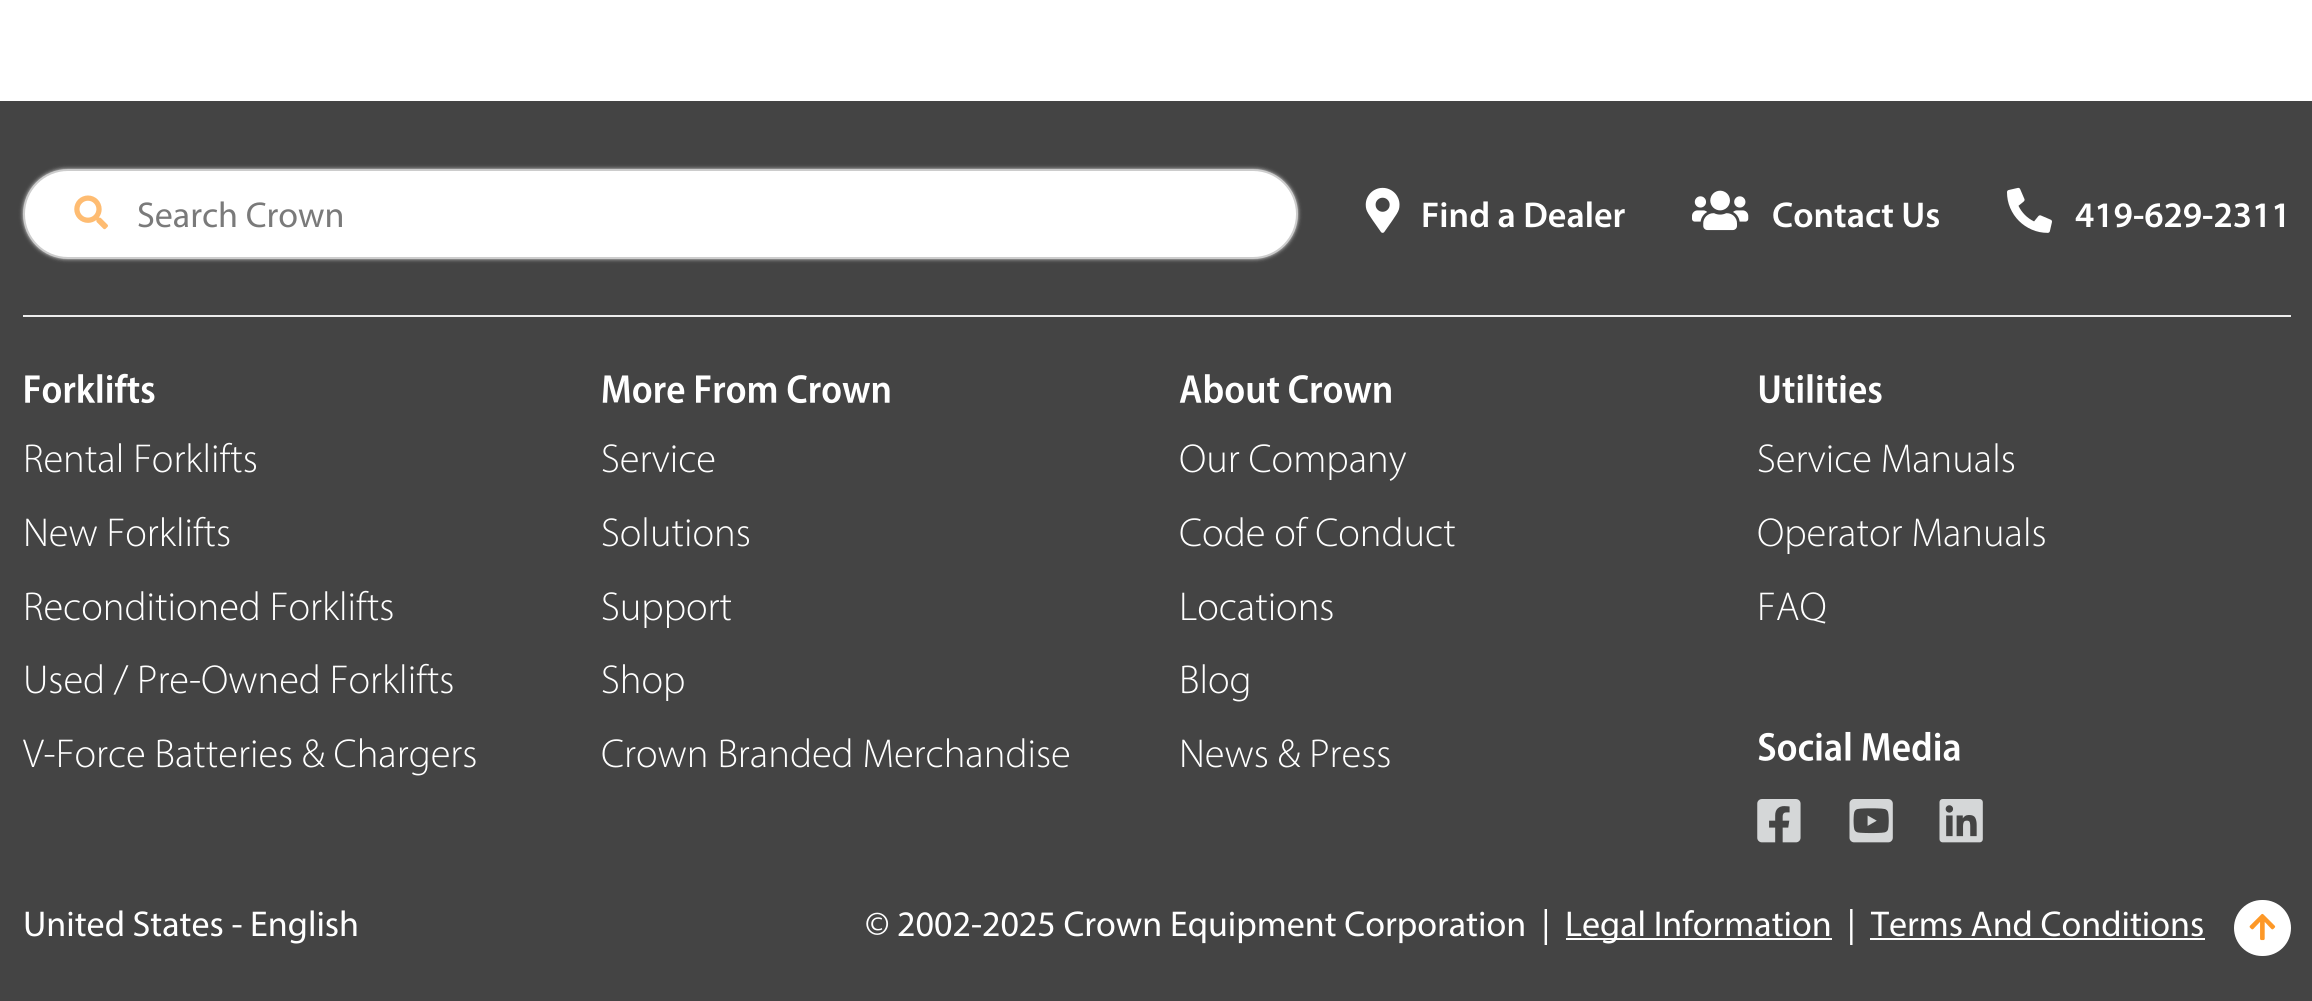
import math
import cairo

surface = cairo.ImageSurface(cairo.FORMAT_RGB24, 2312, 1001)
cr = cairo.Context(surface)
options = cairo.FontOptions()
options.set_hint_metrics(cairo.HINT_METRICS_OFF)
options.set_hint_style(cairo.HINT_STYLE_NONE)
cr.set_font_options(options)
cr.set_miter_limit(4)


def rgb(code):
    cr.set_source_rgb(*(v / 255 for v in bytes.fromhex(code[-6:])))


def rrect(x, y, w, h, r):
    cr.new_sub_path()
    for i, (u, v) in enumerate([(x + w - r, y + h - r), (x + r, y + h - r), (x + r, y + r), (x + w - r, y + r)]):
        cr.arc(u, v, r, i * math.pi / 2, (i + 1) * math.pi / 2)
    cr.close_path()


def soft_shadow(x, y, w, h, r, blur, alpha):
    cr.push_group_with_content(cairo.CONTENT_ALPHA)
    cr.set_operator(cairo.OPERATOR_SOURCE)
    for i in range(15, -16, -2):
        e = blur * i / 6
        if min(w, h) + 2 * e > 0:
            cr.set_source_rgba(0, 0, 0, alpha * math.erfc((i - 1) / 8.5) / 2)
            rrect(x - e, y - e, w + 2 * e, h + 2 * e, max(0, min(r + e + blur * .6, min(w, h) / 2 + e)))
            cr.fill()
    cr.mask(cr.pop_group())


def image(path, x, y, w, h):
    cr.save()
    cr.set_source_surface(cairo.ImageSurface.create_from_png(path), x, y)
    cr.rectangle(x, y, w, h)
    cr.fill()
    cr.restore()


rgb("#ffffff")
cr.paint()
rgb("#444444")
cr.rectangle(0, 101, 2312, 900)
cr.fill()
rgb("#dadada")
soft_shadow(23, 169, 1275, 90, 45, 2, 1)
rgb("#ffffff")
rrect(24, 170, 1273, 88, 44)
cr.fill_preserve()
rgb("#cccccc")
cr.stroke()
image("img/1.png", 74, 195, 34, 35)
image("img/2.png", 1365, 187, 35, 46)
image("img/3.png", 1692, 190, 57, 41)
image("img/4.png", 2007, 187, 45, 46)
rgb("#eeeeee")
cr.rectangle(23, 315, 2268, 2)
cr.fill()
image("img/5.png", 25, 373, 130, 31)
image("img/6.png", 602, 375, 288, 29)
image("img/7.png", 1179, 374, 212, 30)
image("img/8.png", 1759, 374, 123, 30)
image("img/9.png", 1758, 731, 202, 30)
image("img/10.png", 1757, 799, 44, 44)
image("img/11.png", 1849, 799, 44, 44)
image("img/12.png", 1939, 799, 44, 44)
rgb("#ffffff")
cr.rectangle(1566, 938, 266, 2)
cr.fill()
cr.rectangle(1870, 938, 335, 2)
cr.fill()
rrect(2234, 900, 57, 56, 28)
cr.fill()
image("img/13.png", 2249, 913, 27, 28)
cr.select_font_face("Myriad")
cr.set_font_size(36)
rgb("#7a7a7a")
cr.move_to(137, 227)
cr.show_text("Search Crown")
cr.select_font_face("Myriad SemiBold")
rgb("#ffffff")
for x, y, s in [
    (1421, 227, "Find a Dealer"),
    (1772, 227, "Contact Us"),
    (2075, 227, "419-629-2311"),
]:
    cr.move_to(x, y)
    cr.show_text(s)
cr.select_font_face("Myriad Light")
cr.set_font_size(40.5)
for x, y, s in [
    (23, 472, "Rental Forklifts"),
    (23, 546, "New Forklifts"),
    (23, 620, "Reconditioned Forklifts"),
    (23, 693, "Used / Pre-Owned Forklifts"),
    (23, 767, "V-Force Batteries & Chargers"),
    (601, 472, "Service"),
    (601, 546, "Solutions"),
    (601, 620, "Support"),
    (601, 693, "Shop"),
    (601, 767, "Crown Branded Merchandise"),
    (1179, 472, "Our Company"),
    (1179, 546, "Code of Conduct"),
    (1179, 620, "Locations"),
    (1179, 693, "Blog"),
    (1179, 767, "News & Press"),
    (1757, 472, "Service Manuals"),
    (1757, 546, "Operator Manuals"),
    (1757, 620, "FAQ"),
]:
    cr.move_to(x, y)
    cr.show_text(s)
cr.select_font_face("Myriad")
cr.set_font_size(36)
for x, y, s in [
    (23, 936, "United States - English"),
    (865, 936, "© 2002-2025 Crown Equipment Corporation  |"),
    (1565, 936, "Legal Information"),
    (1847, 936, "|"),
    (1871, 936, "Terms And Conditions"),
]:
    cr.move_to(x, y)
    cr.show_text(s)
surface.write_to_png("page.png")
